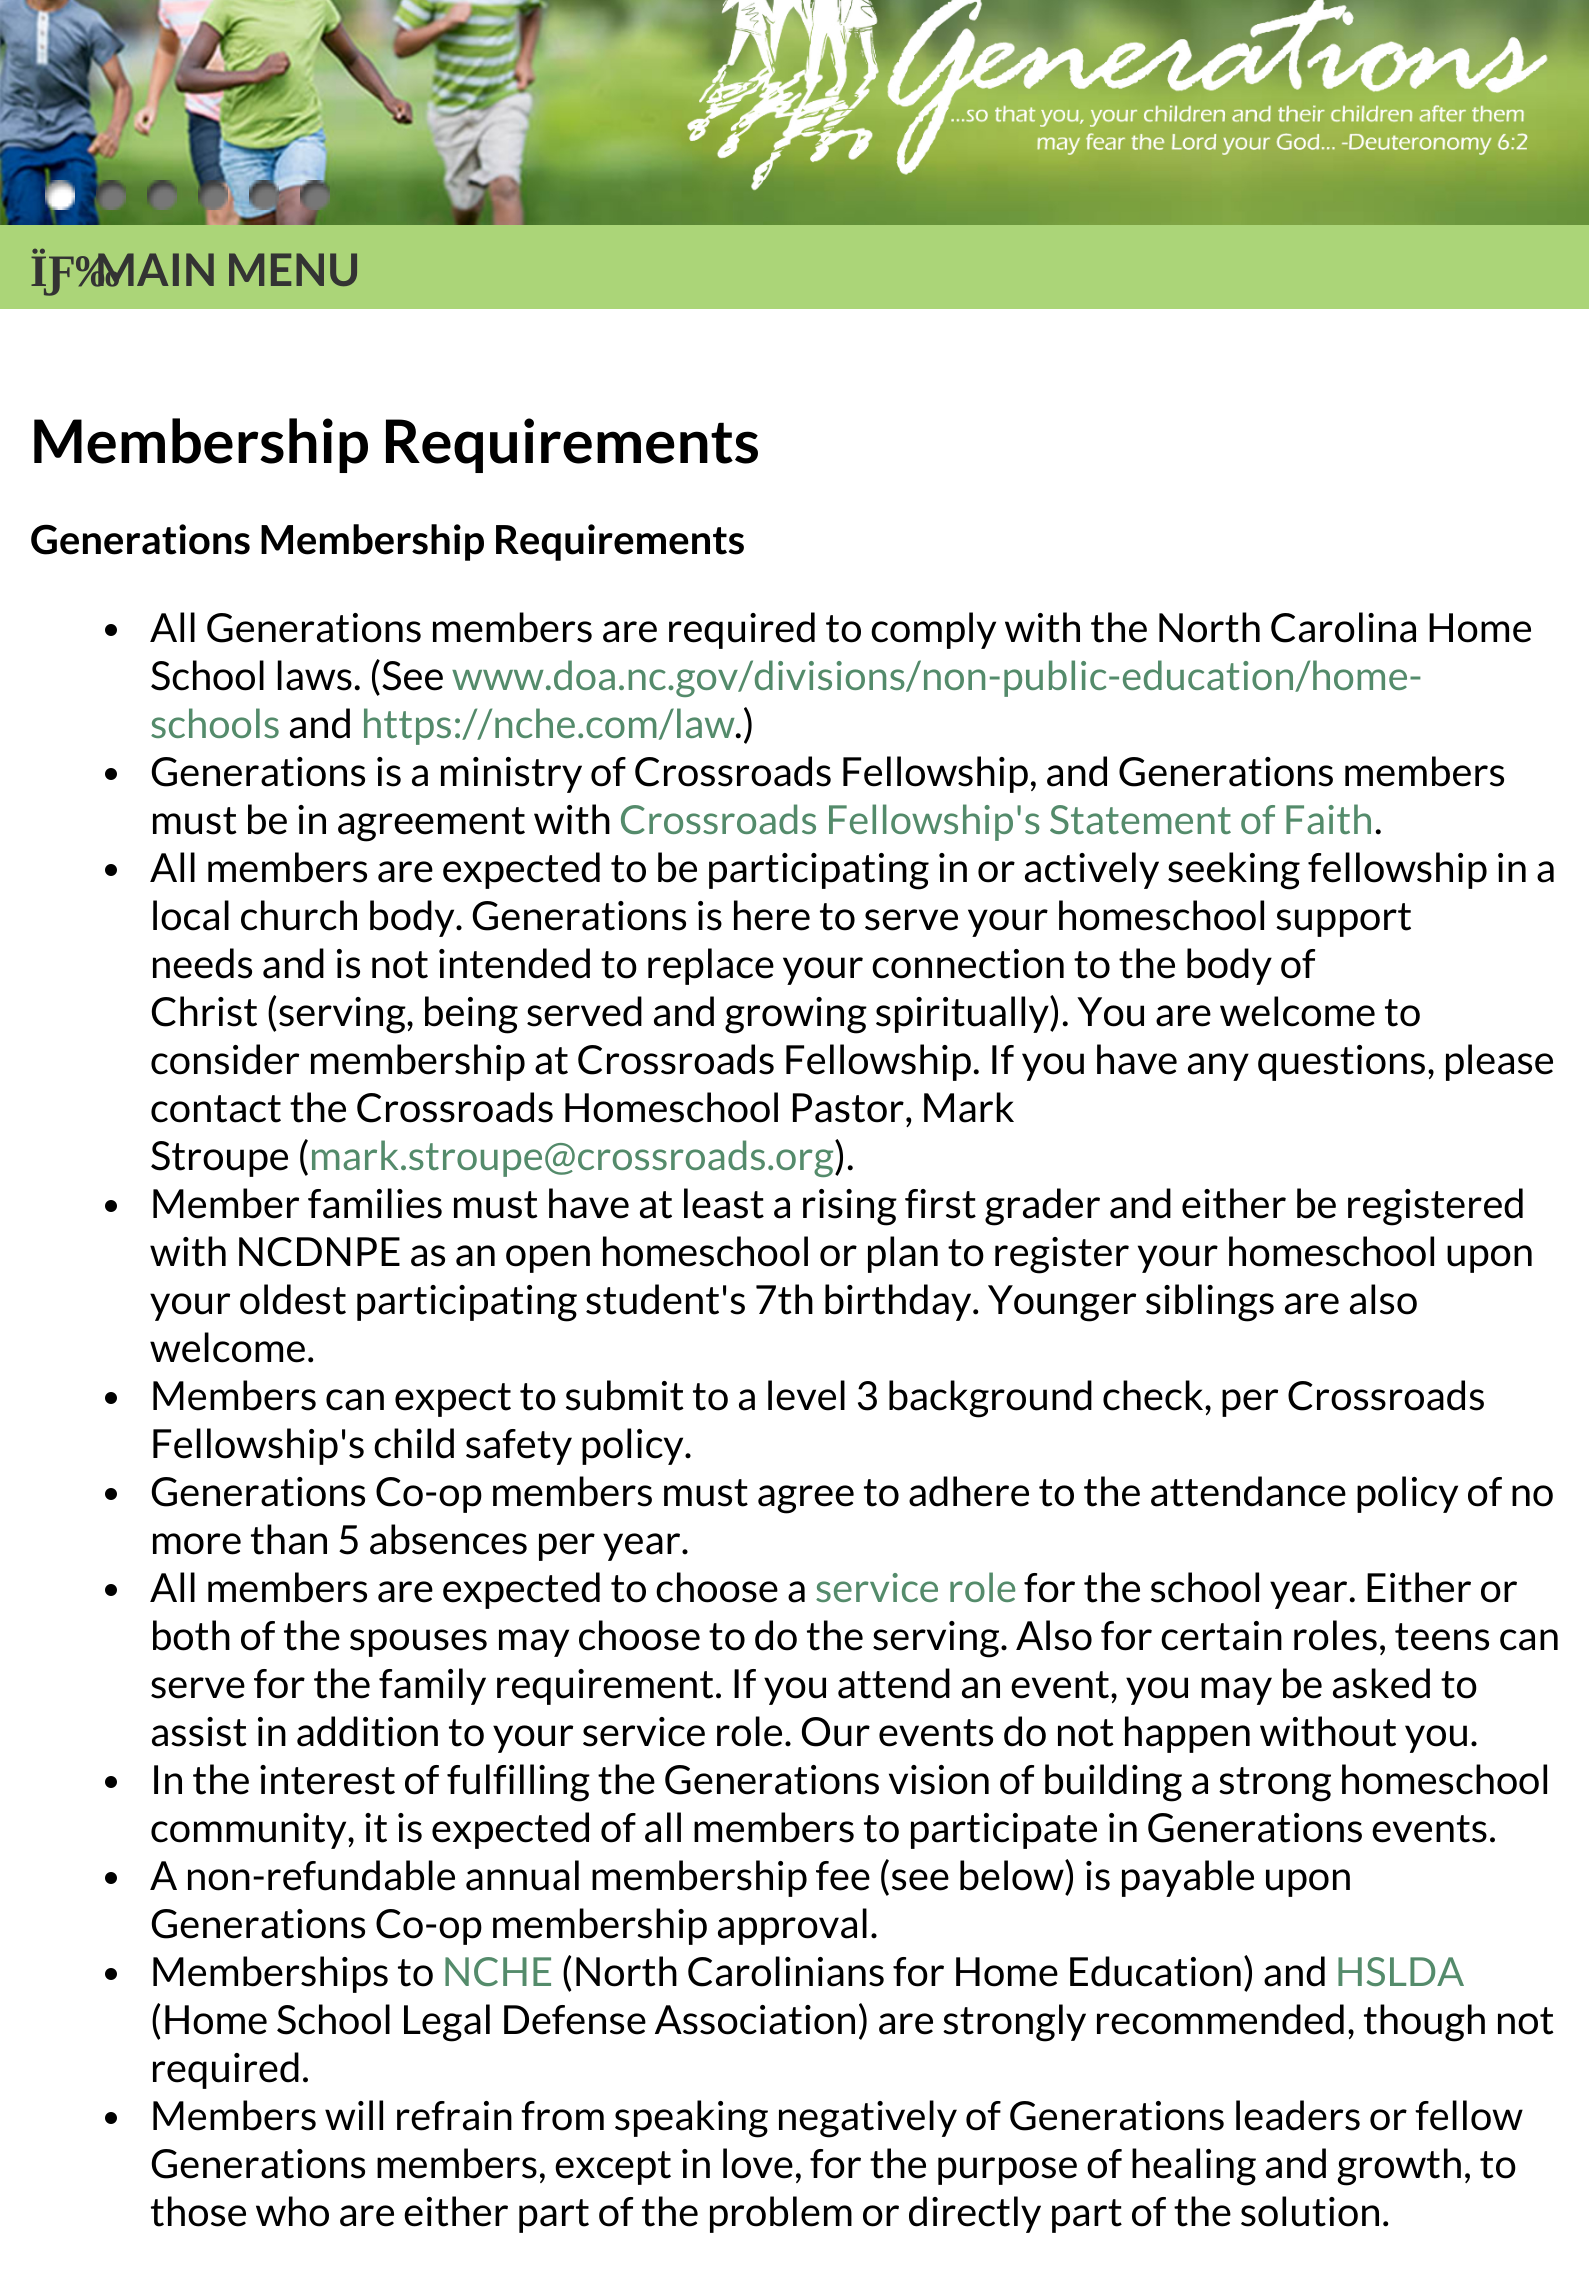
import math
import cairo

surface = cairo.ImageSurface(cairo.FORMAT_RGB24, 1589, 2293)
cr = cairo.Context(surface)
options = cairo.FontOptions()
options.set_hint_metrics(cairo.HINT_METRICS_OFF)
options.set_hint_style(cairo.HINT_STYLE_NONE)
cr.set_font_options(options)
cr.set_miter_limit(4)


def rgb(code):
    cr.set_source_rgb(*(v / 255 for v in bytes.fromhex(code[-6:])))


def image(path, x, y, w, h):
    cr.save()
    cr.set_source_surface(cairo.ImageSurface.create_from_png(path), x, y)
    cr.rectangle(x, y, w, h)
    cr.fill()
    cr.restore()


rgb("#abd578")
cr.paint()
image("img/1.png", 0, 0, 1589, 225)
image("img/2.png", 45, 180, 30, 30)
image("img/3.png", 96, 180, 30, 30)
image("img/4.png", 147, 180, 30, 30)
image("img/5.png", 198, 180, 30, 30)
image("img/6.png", 249, 180, 30, 30)
image("img/7.png", 300, 180, 30, 30)
rgb("#ffffff")
cr.rectangle(0, 309, 1589, 1984)
cr.fill()
rgb("#000000")
cr.arc(111, 630, 6, 0, 2 * math.pi)
cr.fill()
cr.arc(111, 774, 6, 0, 2 * math.pi)
cr.fill()
cr.arc(111, 870, 6, 0, 2 * math.pi)
cr.fill()
cr.arc(111, 1206, 6, 0, 2 * math.pi)
cr.fill()
cr.arc(111, 1398, 6, 0, 2 * math.pi)
cr.fill()
cr.arc(111, 1494, 6, 0, 2 * math.pi)
cr.fill()
cr.arc(111, 1590, 6, 0, 2 * math.pi)
cr.fill()
cr.arc(111, 1782, 6, 0, 2 * math.pi)
cr.fill()
cr.arc(111, 1878, 6, 0, 2 * math.pi)
cr.fill()
cr.arc(111, 1974, 6, 0, 2 * math.pi)
cr.fill()
cr.arc(111, 2118, 6, 0, 2 * math.pi)
cr.fill()
cr.select_font_face("Liberation Serif", cairo.FONT_SLANT_NORMAL, cairo.FONT_WEIGHT_BOLD)
cr.set_font_size(45)
rgb("#333333")
cr.move_to(30, 286)
cr.show_text("ÏƑ‰")
cr.select_font_face("Lato", cairo.FONT_SLANT_NORMAL, cairo.FONT_WEIGHT_BOLD)
cr.move_to(95, 286)
cr.show_text("MAIN MENU")
cr.set_font_size(60)
rgb("#000000")
cr.move_to(30, 463)
cr.show_text("Membership Requirements")
cr.set_font_size(40)
cr.move_to(30, 554)
cr.show_text("Generations Membership Requirements")
cr.select_font_face("Lato")
cr.move_to(150, 642)
cr.show_text("All Generations members are required to comply with the North Carolina Home")
cr.move_to(150, 690)
cr.show_text("School laws. (See")
rgb("#548b6b")
cr.move_to(452, 690)
cr.show_text("www.doa.nc.gov/divisions/non-public-education/home-")
cr.move_to(150, 738)
cr.show_text("schools")
rgb("#000000")
cr.move_to(288, 738)
cr.show_text("and")
rgb("#548b6b")
cr.move_to(361, 738)
cr.show_text("https://nche.com/law")
rgb("#000000")
for x, y, s in [
    (734, 738, ".)"),
    (150, 786, "Generations is a ministry of Crossroads Fellowship, and Generations members"),
    (150, 834, "must be in agreement with"),
]:
    cr.move_to(x, y)
    cr.show_text(s)
rgb("#548b6b")
cr.move_to(619, 834)
cr.show_text("Crossroads Fellowship's Statement of Faith")
rgb("#000000")
for x, y, s in [
    (1374, 834, "."),
    (150, 882, "All members are expected to be participating in or actively seeking fellowship in a"),
    (150, 930, "local church body. Generations is here to serve your homeschool support"),
    (150, 978, "needs and is not intended to replace your connection to the body of"),
    (150, 1026, "Christ (serving, being served and growing spiritually). You are welcome to"),
    (150, 1074, "consider membership at Crossroads Fellowship. If you have any questions, please"),
    (150, 1122, "contact the Crossroads Homeschool Pastor, Mark"),
    (150, 1170, "Stroupe ("),
]:
    cr.move_to(x, y)
    cr.show_text(s)
rgb("#548b6b")
cr.move_to(309, 1170)
cr.show_text("mark.stroupe@crossroads.org")
rgb("#000000")
for x, y, s in [
    (834, 1170, ")."),
    (150, 1218, "Member families must have at least a rising first grader and either be registered"),
    (150, 1266, "with NCDNPE as an open homeschool or plan to register your homeschool upon"),
    (150, 1314, "your oldest participating student's 7th birthday. Younger siblings are also"),
    (150, 1362, "welcome."),
    (150, 1410, "Members can expect to submit to a level 3 background check, per Crossroads"),
    (150, 1458, "Fellowship's child safety policy."),
    (150, 1506, "Generations Co-op members must agree to adhere to the attendance policy of no"),
    (150, 1554, "more than 5 absences per year."),
    (150, 1602, "All members are expected to choose a"),
]:
    cr.move_to(x, y)
    cr.show_text(s)
rgb("#548b6b")
cr.move_to(815, 1602)
cr.show_text("service role")
rgb("#000000")
for x, y, s in [
    (1024, 1602, "for the school year. Either or"),
    (150, 1650, "both of the spouses may choose to do the serving. Also for certain roles, teens can"),
    (150, 1698, "serve for the family requirement. If you attend an event, you may be asked to"),
    (150, 1746, "assist in addition to your service role. Our events do not happen without you."),
    (150, 1794, "In the interest of fulfilling the Generations vision of building a strong homeschool"),
    (150, 1842, "community, it is expected of all members to participate in Generations events."),
    (150, 1890, "A non-refundable annual membership fee (see below) is payable upon"),
    (150, 1938, "Generations Co-op membership approval."),
    (150, 1986, "Memberships to"),
]:
    cr.move_to(x, y)
    cr.show_text(s)
rgb("#548b6b")
cr.move_to(442, 1986)
cr.show_text("NCHE")
rgb("#000000")
cr.move_to(561, 1986)
cr.show_text("(North Carolinians for Home Education) and")
rgb("#548b6b")
cr.move_to(1335, 1986)
cr.show_text("HSLDA")
rgb("#000000")
for x, y, s in [
    (150, 2034, "(Home School Legal Defense Association) are strongly recommended, though not"),
    (150, 2082, "required."),
    (150, 2130, "Members will refrain from speaking negatively of Generations leaders or fellow"),
    (150, 2178, "Generations members, except in love, for the purpose of healing and growth, to"),
    (150, 2226, "those who are either part of the problem or directly part of the solution."),
]:
    cr.move_to(x, y)
    cr.show_text(s)
surface.write_to_png("page.png")
